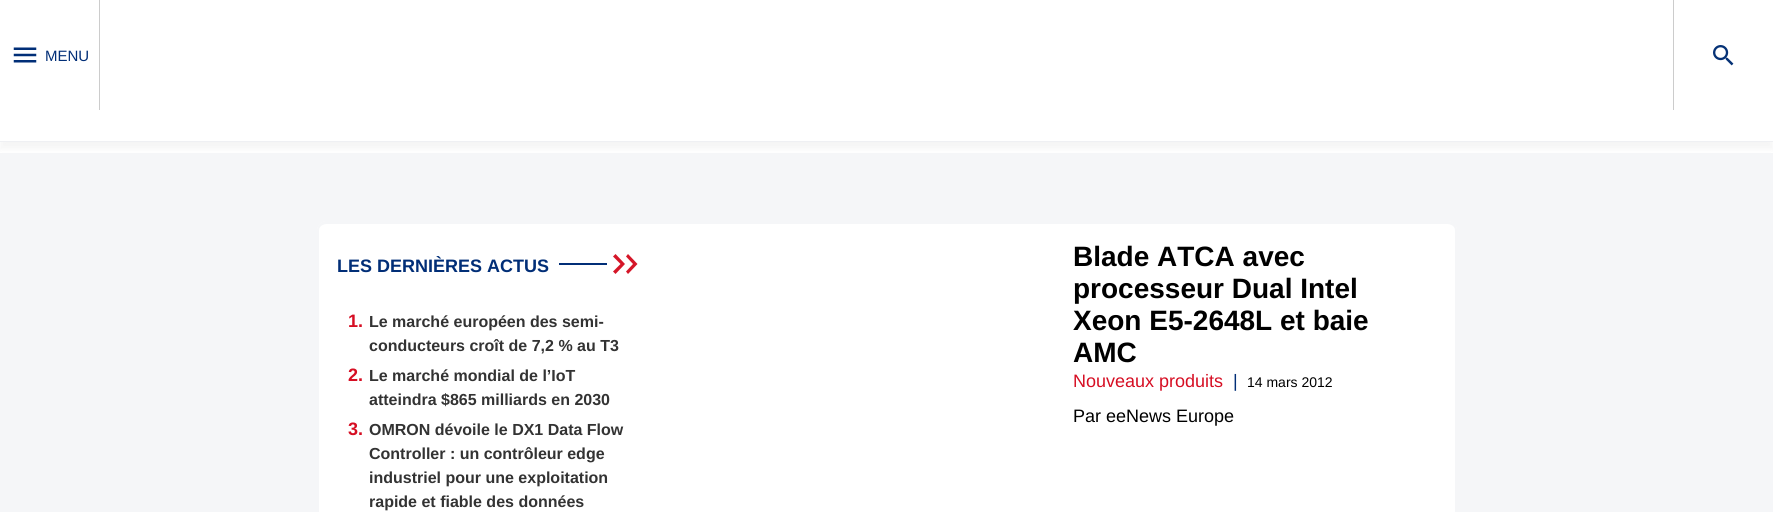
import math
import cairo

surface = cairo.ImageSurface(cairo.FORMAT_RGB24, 1773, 512)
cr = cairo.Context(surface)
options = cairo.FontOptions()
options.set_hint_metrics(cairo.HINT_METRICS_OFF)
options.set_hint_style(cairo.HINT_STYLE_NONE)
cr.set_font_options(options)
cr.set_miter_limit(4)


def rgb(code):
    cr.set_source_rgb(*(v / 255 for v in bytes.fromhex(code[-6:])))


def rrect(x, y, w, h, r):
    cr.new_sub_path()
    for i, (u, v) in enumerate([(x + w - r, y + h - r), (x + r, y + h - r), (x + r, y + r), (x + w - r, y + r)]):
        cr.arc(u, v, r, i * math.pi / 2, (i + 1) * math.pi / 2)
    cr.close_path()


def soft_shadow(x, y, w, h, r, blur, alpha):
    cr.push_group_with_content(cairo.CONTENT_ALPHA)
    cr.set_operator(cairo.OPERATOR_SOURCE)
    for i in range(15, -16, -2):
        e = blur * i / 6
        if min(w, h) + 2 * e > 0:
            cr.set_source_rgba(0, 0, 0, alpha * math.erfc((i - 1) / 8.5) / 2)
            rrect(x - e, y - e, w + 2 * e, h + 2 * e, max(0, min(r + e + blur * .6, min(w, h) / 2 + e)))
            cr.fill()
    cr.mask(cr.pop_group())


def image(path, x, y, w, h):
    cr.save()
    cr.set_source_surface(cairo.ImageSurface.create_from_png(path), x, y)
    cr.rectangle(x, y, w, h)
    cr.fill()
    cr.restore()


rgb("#f5f6f8")
cr.paint()
rgb("#ffffff")
cr.rectangle(0, 142, 1773, 11)
cr.fill()
rgb("#000000")
soft_shadow(0, 6, 1773, 143, 0, 3, 0.04)
for x, y, w, h, color in [
    (0, 0, 1773, 141, "#ffffff"),
    (0, 141, 1773, 1, "#eff0f3"),
    (99, 0, 1, 110, "#cccccc"),
]:
    rgb(color)
    cr.rectangle(x, y, w, h)
    cr.fill()
image("img/1.png", 13, 47, 24, 16)
cr.rectangle(1673, 0, 1, 110)
cr.fill()
image("img/2.png", 1713, 45, 21, 21)
rgb("#ffffff")
rrect(317, 221, 1140, 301, 10)
cr.fill()
rgb("#f5f6f8")
cr.new_path()
cr.move_to(1445, 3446)
cr.line_to(1447, 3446)
cr.curve_to(1453, 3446, 1457, 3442, 1457, 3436)
cr.line_to(1457, 231)
cr.curve_to(1457, 225, 1453, 221, 1447, 221)
cr.line_to(1445, 221)
cr.curve_to(1450, 221, 1455, 225, 1455, 231)
cr.line_to(1455, 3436)
cr.curve_to(1455, 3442, 1450, 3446, 1445, 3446)
cr.close_path()
cr.fill()
cr.new_path()
cr.move_to(327, 221)
cr.curve_to(322, 221, 317, 226, 317, 231)
cr.line_to(317, 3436)
cr.curve_to(317, 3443, 323, 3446, 329, 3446)
cr.curve_to(324, 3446, 319, 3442, 319, 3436)
cr.line_to(319, 231)
cr.curve_to(319, 225, 324, 221, 329, 221)
cr.close_path()
cr.fill()
cr.new_path()
cr.move_to(327, 224)
cr.line_to(1447, 224)
cr.curve_to(1453, 224, 1457, 229, 1457, 234)
cr.line_to(1457, 231)
cr.curve_to(1457, 225, 1453, 221, 1447, 221)
cr.line_to(327, 221)
cr.curve_to(321, 221, 317, 225, 317, 231)
cr.line_to(317, 234)
cr.curve_to(317, 229, 321, 224, 327, 224)
cr.close_path()
cr.fill()
rgb("#012e77")
cr.rectangle(559, 263, 48, 2)
cr.fill()
rgb("#d51628")
cr.set_fill_rule(cairo.FILL_RULE_EVEN_ODD)
cr.new_path()
cr.move_to(615.5, 254)
cr.line_to(613, 256.5)
cr.line_to(620.5, 264)
cr.line_to(613, 271.5)
cr.line_to(615.5, 274)
cr.line_to(625, 264)
cr.close_path()
cr.move_to(628, 254)
cr.line_to(626, 256.5)
cr.line_to(633, 264)
cr.line_to(626, 271.5)
cr.line_to(628, 274)
cr.line_to(637.5, 264)
cr.close_path()
cr.fill()
cr.select_font_face("Liberation Sans")
cr.set_font_size(15)
rgb("#012e77")
cr.move_to(45, 61)
cr.show_text("MENU")
cr.select_font_face("Liberation Sans", cairo.FONT_SLANT_NORMAL, cairo.FONT_WEIGHT_BOLD)
cr.set_font_size(18)
cr.move_to(337, 272)
cr.show_text("LES DERNIÈRES ACTUS")
rgb("#d60e23")
cr.move_to(348, 327)
cr.show_text("1.")
cr.set_font_size(16)
rgb("#333333")
cr.move_to(369, 327)
cr.show_text("Le marché européen des semi-")
cr.move_to(369, 351)
cr.show_text("conducteurs croît de 7,2 % au T3")
cr.set_font_size(18)
rgb("#d60e23")
cr.move_to(348, 381)
cr.show_text("2.")
cr.set_font_size(16)
rgb("#333333")
cr.move_to(369, 381)
cr.show_text("Le marché mondial de l’IoT")
cr.move_to(369, 405)
cr.show_text("atteindra $865 milliards en 2030")
cr.set_font_size(18)
rgb("#d60e23")
cr.move_to(348, 435)
cr.show_text("3.")
cr.set_font_size(16)
rgb("#333333")
for x, y, s in [
    (369, 435, "OMRON dévoile le DX1 Data Flow"),
    (369, 459, "Controller : un contrôleur edge"),
    (369, 483, "industriel pour une exploitation"),
    (369, 507, "rapide et fiable des données"),
]:
    cr.move_to(x, y)
    cr.show_text(s)
cr.set_font_size(28)
rgb("#000000")
for x, y, s in [
    (1073, 266, "Blade ATCA avec"),
    (1073, 298, "processeur Dual Intel"),
    (1073, 330, "Xeon E5-2648L et baie"),
    (1073, 362, "AMC"),
]:
    cr.move_to(x, y)
    cr.show_text(s)
cr.select_font_face("Liberation Sans")
cr.set_font_size(18)
rgb("#d60e23")
cr.move_to(1073, 387)
cr.show_text("Nouveaux produits")
rgb("#012e77")
cr.move_to(1233, 387)
cr.show_text("|")
cr.set_font_size(14)
rgb("#000000")
cr.move_to(1247, 387)
cr.show_text("14 mars 2012")
cr.set_font_size(18)
cr.move_to(1073, 422)
cr.show_text("Par eeNews Europe")
surface.write_to_png("page.png")
